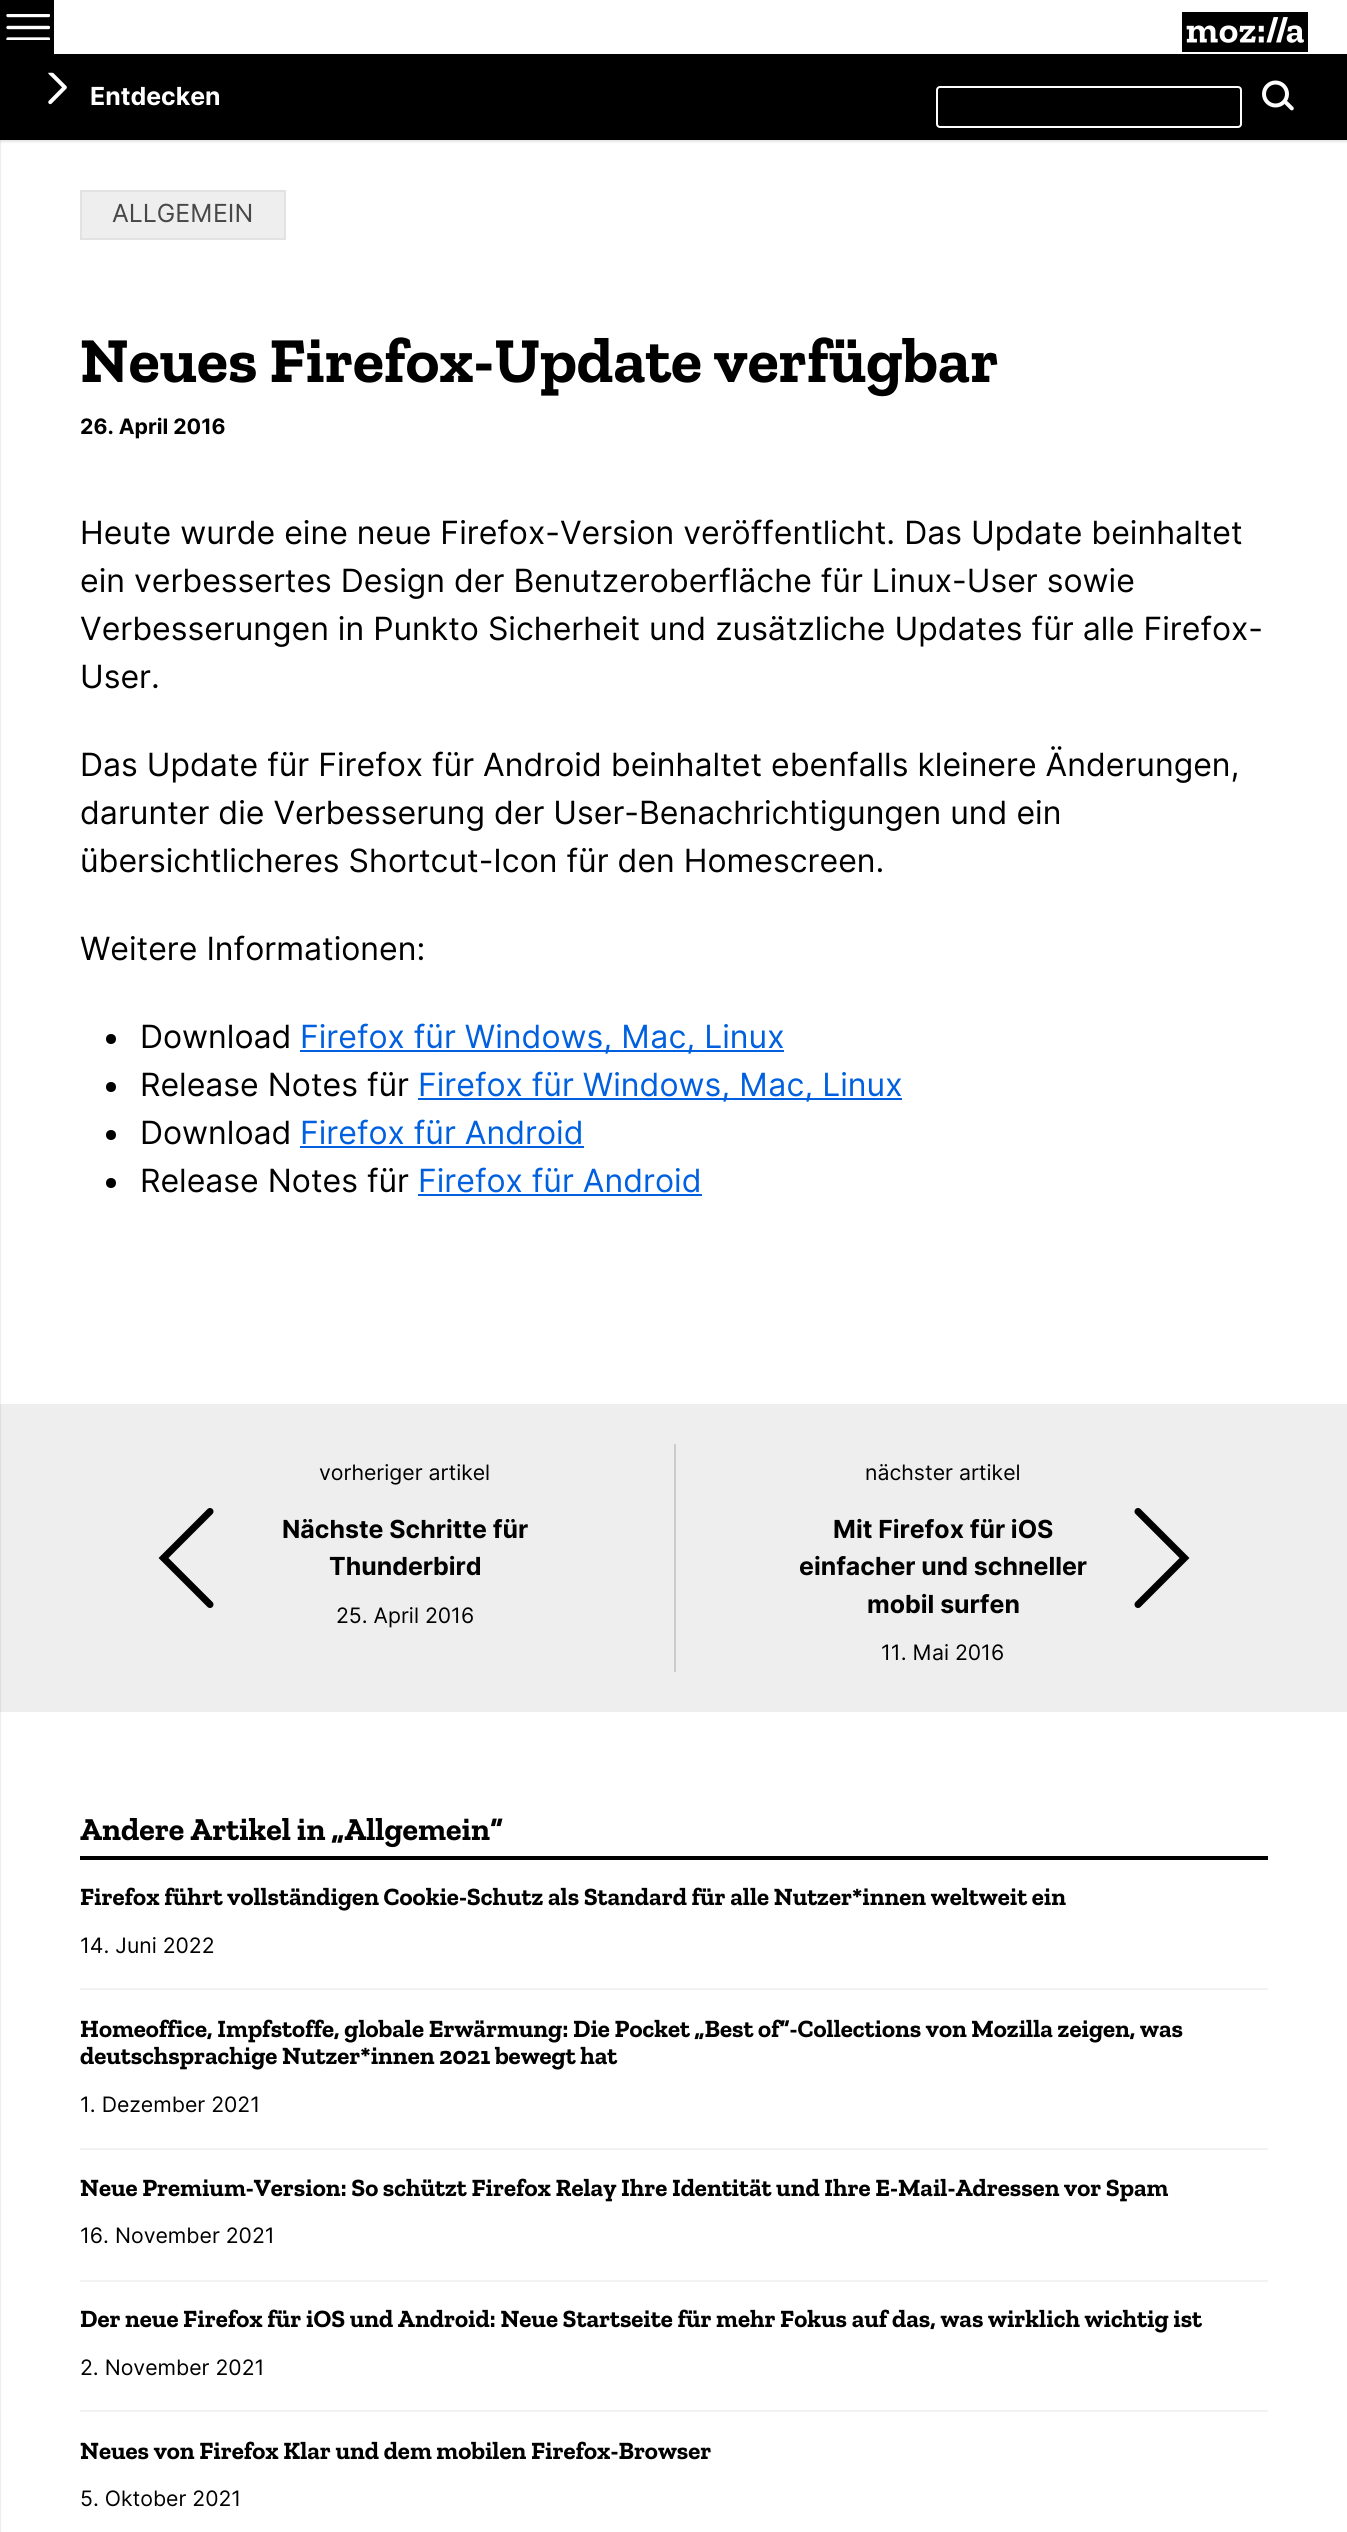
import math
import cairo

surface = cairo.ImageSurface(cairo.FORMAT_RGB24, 1347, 2532)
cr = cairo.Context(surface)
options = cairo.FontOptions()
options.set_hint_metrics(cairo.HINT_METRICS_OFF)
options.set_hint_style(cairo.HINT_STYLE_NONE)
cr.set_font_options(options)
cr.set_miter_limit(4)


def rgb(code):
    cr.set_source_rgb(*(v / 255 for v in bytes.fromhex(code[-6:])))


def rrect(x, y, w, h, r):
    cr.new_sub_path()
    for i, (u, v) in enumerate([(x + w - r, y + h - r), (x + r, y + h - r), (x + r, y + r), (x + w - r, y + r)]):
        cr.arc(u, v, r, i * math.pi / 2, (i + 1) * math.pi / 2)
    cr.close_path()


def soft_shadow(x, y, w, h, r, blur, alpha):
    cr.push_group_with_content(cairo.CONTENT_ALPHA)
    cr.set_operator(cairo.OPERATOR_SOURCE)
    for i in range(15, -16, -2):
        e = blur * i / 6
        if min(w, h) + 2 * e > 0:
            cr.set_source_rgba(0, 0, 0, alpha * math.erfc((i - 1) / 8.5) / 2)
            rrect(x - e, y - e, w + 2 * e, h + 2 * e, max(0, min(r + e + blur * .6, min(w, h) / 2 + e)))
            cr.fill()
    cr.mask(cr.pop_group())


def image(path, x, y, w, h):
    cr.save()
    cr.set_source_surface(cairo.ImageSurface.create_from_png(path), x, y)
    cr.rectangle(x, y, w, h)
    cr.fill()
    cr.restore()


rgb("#ffffff")
cr.paint()
rgb("#000000")
soft_shadow(0, 56, 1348, 86, 0, 1, 0.1)
rgb("#000000")
cr.rectangle(0, 0, 54, 54)
cr.fill()
cr.save()
cr.rectangle(6, 14, 44, 26)
cr.clip()
cr.new_path()
cr.move_to(8, 15.5)
cr.line_to(48.5, 15.5)
cr.move_to(8, 27.5)
cr.line_to(48.5, 27.5)
cr.move_to(8, 39)
cr.line_to(48.5, 39)
rgb("#ffffff")
cr.set_line_width(3.4)
cr.set_line_cap(cairo.LINE_CAP_ROUND)
cr.set_line_join(cairo.LINE_JOIN_ROUND)
cr.stroke()
cr.restore()
image("img/1.png", 1182, 12, 126, 40)
rgb("#eeeeee")
cr.rectangle(0, 1404, 1347, 308)
cr.fill()
rgb("#000000")
soft_shadow(-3, 140, 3, 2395, 0, 1, 0.2)
rgb("#000000")
cr.rectangle(0, 54, 1347, 86)
cr.fill()
image("img/2.png", 48, 72, 19, 33)
rrect(937, 87, 304, 40, 3)
rgb("#ffffff")
cr.stroke()
image("img/3.png", 1262, 80, 32, 31)
rgb("#eeeeee")
cr.rectangle(81, 191, 204, 48)
cr.fill_preserve()
rgb("#e2e2e2")
cr.stroke()
rgb("#000000")
cr.arc(111, 1039, 5, 0, 2 * math.pi)
cr.fill()
rgb("#0060df")
cr.rectangle(300, 1050, 484, 2)
cr.fill()
rgb("#000000")
cr.arc(111, 1087, 5, 0, 2 * math.pi)
cr.fill()
rgb("#0060df")
cr.rectangle(418, 1098, 484, 2)
cr.fill()
rgb("#000000")
cr.arc(111, 1135, 5, 0, 2 * math.pi)
cr.fill()
rgb("#0060df")
cr.rectangle(300, 1146, 284, 2)
cr.fill()
rgb("#000000")
cr.arc(111, 1183, 5, 0, 2 * math.pi)
cr.fill()
rgb("#0060df")
cr.rectangle(418, 1194, 284, 2)
cr.fill()
rgb("#cccccc")
cr.rectangle(674, 1444, 2, 228)
cr.fill()
cr.new_path()
cr.move_to(210, 1511.5)
cr.line_to(163.5, 1558)
cr.line_to(210, 1604.5)
rgb("#000000")
cr.set_line_width(7)
cr.set_line_cap(cairo.LINE_CAP_ROUND)
cr.stroke()
cr.new_path()
cr.move_to(1138, 1511.5)
cr.line_to(1184.5, 1558)
cr.line_to(1138, 1604.5)
cr.stroke()
for x, y, w, h, color in [
    (80, 1856, 1188, 4, "#000000"),
    (80, 1988, 1188, 2, "#f2f2f2"),
    (80, 2148, 1188, 2, "#f2f2f2"),
    (80, 2280, 1188, 2, "#f2f2f2"),
    (80, 2410, 1188, 2, "#f2f2f2"),
]:
    rgb(color)
    cr.rectangle(x, y, w, h)
    cr.fill()
cr.select_font_face("Inter", cairo.FONT_SLANT_NORMAL, cairo.FONT_WEIGHT_BOLD)
cr.set_font_size(24.9)
rgb("#ffffff")
cr.move_to(90, 105)
cr.show_text("Entdecken")
cr.select_font_face("Inter")
rgb("#484848")
cr.move_to(112, 222)
cr.show_text("ALLGEMEIN")
cr.select_font_face("Zilla Slab", cairo.FONT_SLANT_NORMAL, cairo.FONT_WEIGHT_BOLD)
cr.set_font_size(64)
rgb("#000000")
cr.move_to(80, 382)
cr.show_text("Neues Firefox-Update verfügbar")
cr.select_font_face("Inter", cairo.FONT_SLANT_NORMAL, cairo.FONT_WEIGHT_BOLD)
cr.set_font_size(21.25)
cr.move_to(80, 434)
cr.show_text("26. April 2016")
cr.select_font_face("Inter")
cr.set_font_size(32)
for x, y, s in [
    (80, 544, "Heute wurde eine neue Firefox-Version veröffentlicht. Das Update beinhaltet"),
    (80, 592, "ein verbessertes Design der Benutzeroberfläche für Linux-User sowie"),
    (80, 640, "Verbesserungen in Punkto Sicherheit und zusätzliche Updates für alle Firefox-"),
    (80, 688, "User."),
    (80, 776, "Das Update für Firefox für Android beinhaltet ebenfalls kleinere Änderungen,"),
    (80, 824, "darunter die Verbesserung der User-Benachrichtigungen und ein"),
    (80, 872, "übersichtlicheres Shortcut-Icon für den Homescreen."),
    (80, 960, "Weitere Informationen:"),
    (140, 1048, "Download"),
]:
    cr.move_to(x, y)
    cr.show_text(s)
rgb("#0060df")
cr.move_to(300, 1048)
cr.show_text("Firefox für Windows, Mac, Linux")
rgb("#000000")
cr.move_to(140, 1096)
cr.show_text("Release Notes für")
rgb("#0060df")
cr.move_to(418, 1096)
cr.show_text("Firefox für Windows, Mac, Linux")
rgb("#000000")
cr.move_to(140, 1144)
cr.show_text("Download")
rgb("#0060df")
cr.move_to(300, 1144)
cr.show_text("Firefox für Android")
rgb("#000000")
cr.move_to(140, 1192)
cr.show_text("Release Notes für")
rgb("#0060df")
cr.move_to(418, 1192)
cr.show_text("Firefox für Android")
cr.set_font_size(21.25)
rgb("#000000")
cr.move_to(319, 1480)
cr.show_text("vorheriger artikel")
cr.select_font_face("Inter", cairo.FONT_SLANT_NORMAL, cairo.FONT_WEIGHT_BOLD)
cr.set_font_size(24.9)
cr.move_to(282, 1538)
cr.show_text("Nächste Schritte für")
cr.move_to(329, 1575)
cr.show_text("Thunderbird")
cr.select_font_face("Inter")
cr.set_font_size(21.25)
cr.move_to(336, 1623)
cr.show_text("25. April 2016")
cr.move_to(865, 1480)
cr.show_text("nächster artikel")
cr.select_font_face("Inter", cairo.FONT_SLANT_NORMAL, cairo.FONT_WEIGHT_BOLD)
cr.set_font_size(24.9)
for x, y, s in [
    (833, 1538, "Mit Firefox für iOS"),
    (799, 1575, "einfacher und schneller"),
    (867, 1613, "mobil surfen"),
]:
    cr.move_to(x, y)
    cr.show_text(s)
cr.select_font_face("Inter")
cr.set_font_size(21.25)
cr.move_to(881, 1660)
cr.show_text("11. Mai 2016")
cr.select_font_face("Zilla Slab", cairo.FONT_SLANT_NORMAL, cairo.FONT_WEIGHT_BOLD)
cr.set_font_size(32)
cr.move_to(80, 1840)
cr.show_text("Andere Artikel in „Allgemein“")
cr.set_font_size(24.9)
cr.move_to(80, 1905)
cr.show_text("Firefox führt vollständigen Cookie-Schutz als Standard für alle Nutzer*innen weltweit ein")
cr.select_font_face("Inter")
cr.set_font_size(21.25)
cr.move_to(80, 1953)
cr.show_text("14. Juni 2022")
cr.select_font_face("Zilla Slab", cairo.FONT_SLANT_NORMAL, cairo.FONT_WEIGHT_BOLD)
cr.set_font_size(24.9)
cr.move_to(80, 2037)
cr.show_text("Homeoffice, Impfstoffe, globale Erwärmung: Die Pocket „Best of“-Collections von Mozilla zeigen, was")
cr.move_to(80, 2064)
cr.show_text("deutschsprachige Nutzer*innen 2021 bewegt hat")
cr.select_font_face("Inter")
cr.set_font_size(21.25)
cr.move_to(80, 2112)
cr.show_text("1. Dezember 2021")
cr.select_font_face("Zilla Slab", cairo.FONT_SLANT_NORMAL, cairo.FONT_WEIGHT_BOLD)
cr.set_font_size(24.9)
cr.move_to(80, 2196)
cr.show_text("Neue Premium-Version: So schützt Firefox Relay Ihre Identität und Ihre E-Mail-Adressen vor Spam")
cr.select_font_face("Inter")
cr.set_font_size(21.25)
cr.move_to(80, 2243)
cr.show_text("16. November 2021")
cr.select_font_face("Zilla Slab", cairo.FONT_SLANT_NORMAL, cairo.FONT_WEIGHT_BOLD)
cr.set_font_size(24.9)
cr.move_to(80, 2327)
cr.show_text("Der neue Firefox für iOS und Android: Neue Startseite für mehr Fokus auf das, was wirklich wichtig ist")
cr.select_font_face("Inter")
cr.set_font_size(21.25)
cr.move_to(80, 2375)
cr.show_text("2. November 2021")
cr.select_font_face("Zilla Slab", cairo.FONT_SLANT_NORMAL, cairo.FONT_WEIGHT_BOLD)
cr.set_font_size(24.9)
cr.move_to(80, 2459)
cr.show_text("Neues von Firefox Klar und dem mobilen Firefox-Browser")
cr.select_font_face("Inter")
cr.set_font_size(21.25)
cr.move_to(80, 2506)
cr.show_text("5. Oktober 2021")
surface.write_to_png("page.png")
